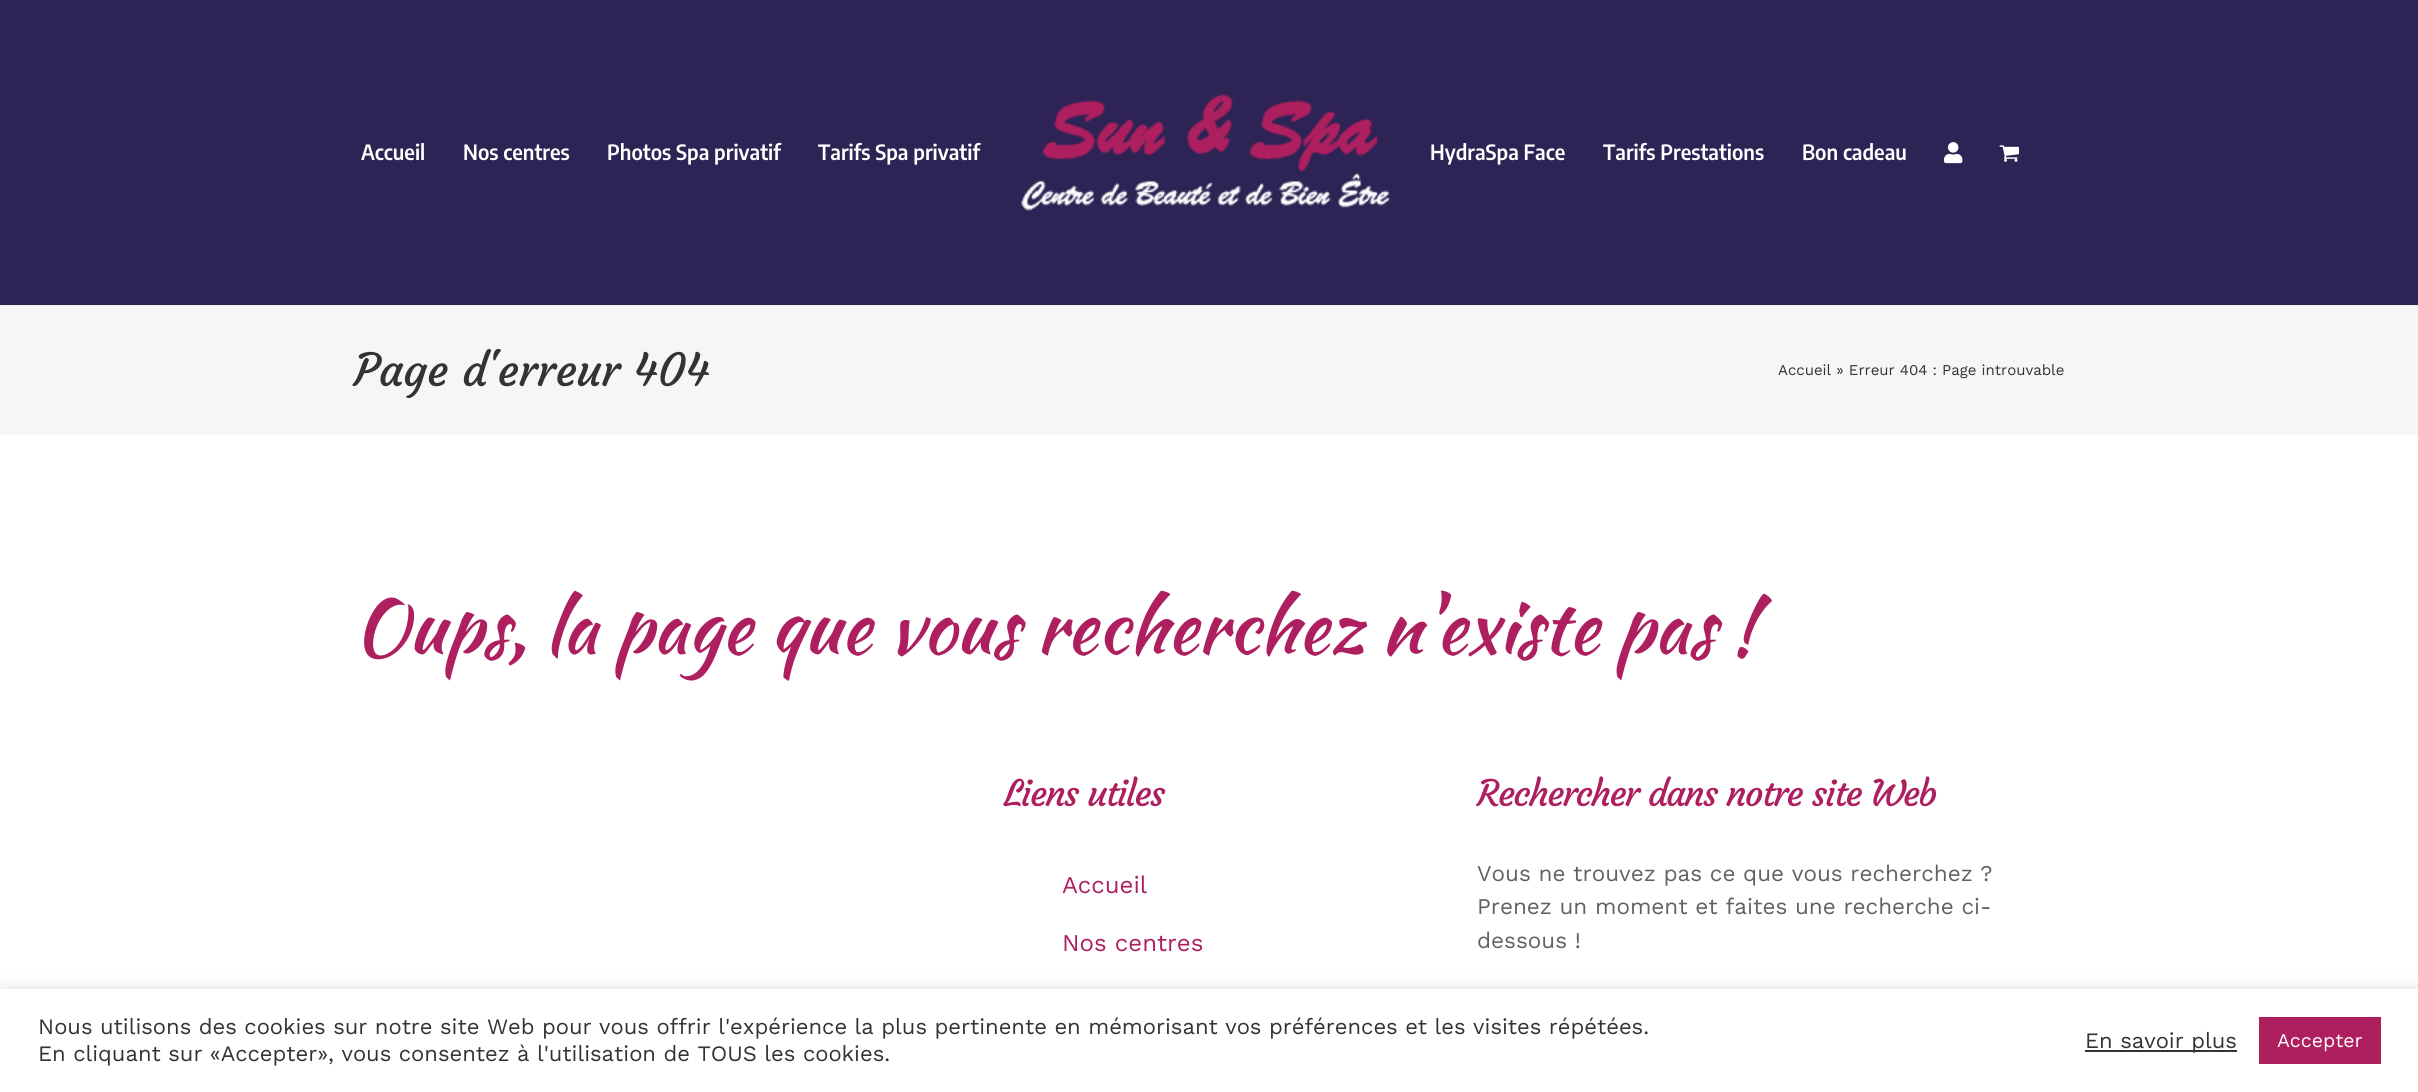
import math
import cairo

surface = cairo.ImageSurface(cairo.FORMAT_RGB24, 2418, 1092)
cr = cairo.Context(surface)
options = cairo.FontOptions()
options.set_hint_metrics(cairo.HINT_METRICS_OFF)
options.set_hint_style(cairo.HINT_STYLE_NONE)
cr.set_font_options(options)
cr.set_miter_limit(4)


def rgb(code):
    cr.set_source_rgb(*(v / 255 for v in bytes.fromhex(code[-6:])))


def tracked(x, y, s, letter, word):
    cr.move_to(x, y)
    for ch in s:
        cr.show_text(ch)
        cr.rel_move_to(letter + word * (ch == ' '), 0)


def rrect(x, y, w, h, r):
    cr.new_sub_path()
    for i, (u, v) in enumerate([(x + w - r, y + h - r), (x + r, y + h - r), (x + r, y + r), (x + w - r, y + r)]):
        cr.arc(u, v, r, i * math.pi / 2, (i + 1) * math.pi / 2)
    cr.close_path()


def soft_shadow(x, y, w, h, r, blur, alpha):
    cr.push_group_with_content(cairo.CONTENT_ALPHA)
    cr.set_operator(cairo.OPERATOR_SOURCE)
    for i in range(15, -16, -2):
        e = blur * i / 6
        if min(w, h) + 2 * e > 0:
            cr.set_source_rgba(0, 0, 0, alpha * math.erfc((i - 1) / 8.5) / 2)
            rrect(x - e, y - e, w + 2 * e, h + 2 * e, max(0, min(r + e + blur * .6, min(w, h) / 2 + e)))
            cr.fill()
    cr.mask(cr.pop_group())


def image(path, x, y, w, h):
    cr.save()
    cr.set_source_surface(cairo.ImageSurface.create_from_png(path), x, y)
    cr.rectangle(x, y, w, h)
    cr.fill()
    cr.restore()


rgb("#ffffff")
cr.paint()
rgb("#2d2354")
cr.rectangle(0, 0, 2418, 305)
cr.fill()
image("img/1.png", 1021, 94, 369, 117)
image("img/2.png", 1944, 142, 19, 22)
image("img/3.png", 1999, 145, 20, 17)
rgb("#f6f6f6")
cr.rectangle(0, 305, 2418, 130)
cr.fill()
rgb("#acabab")
soft_shadow(0, 987, 2418, 104, 0, 7.5, 0.3)
for x, y, w, h, color in [
    (0, 989, 2418, 103, "#ffffff"),
    (2085, 1050, 152, 2, "#333333"),
    (2259, 1017, 122, 47, "#ad1f5f"),
]:
    rgb(color)
    cr.rectangle(x, y, w, h)
    cr.fill()
cr.select_font_face("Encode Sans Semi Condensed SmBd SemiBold")
cr.set_font_size(21)
rgb("#ffffff")
for x, y, s in [
    (361, 160, "Accueil"),
    (463, 160, "Nos centres"),
    (607, 160, "Photos Spa privatif"),
    (818, 160, "Tarifs Spa privatif"),
    (1430, 160, "HydraSpa Face"),
    (1603, 160, "Tarifs Prestations"),
    (1802, 160, "Bon cadeau"),
]:
    cr.move_to(x, y)
    cr.show_text(s)
cr.select_font_face("Courgette")
cr.set_font_size(45)
rgb("#333333")
cr.move_to(354, 386)
cr.show_text("Page d'erreur 404")
cr.select_font_face("Work Sans")
cr.set_font_size(15)
cr.move_to(1778, 375)
cr.show_text("Accueil » Erreur 404 : Page introuvable")
cr.select_font_face("Kaushan Script")
cr.set_font_size(75)
rgb("#ad1f5f")
cr.move_to(354, 653)
cr.show_text("Oups, la page que vous recherchez n'existe pas !")
cr.select_font_face("Courgette")
cr.set_font_size(36)
tracked(1004, 806, "Liens utiles", -1.5, 0)
cr.select_font_face("Work Sans")
cr.set_font_size(24)
cr.move_to(1062, 893)
cr.show_text("Accueil")
cr.move_to(1062, 951)
cr.show_text("Nos centres")
cr.select_font_face("Courgette")
cr.set_font_size(36)
tracked(1477, 806, "Rechercher dans notre site Web", -1.5, 0)
cr.select_font_face("Work Sans")
cr.set_font_size(22.5)
rgb("#616161")
for x, y, s in [
    (1477, 881, "Vous ne trouvez pas ce que vous recherchez ?"),
    (1477, 914, "Prenez un moment et faites une recherche ci-"),
    (1477, 948, "dessous !"),
]:
    cr.move_to(x, y)
    cr.show_text(s)
cr.set_font_size(22)
rgb("#333333")
for x, y, s in [
    (38, 1034, "Nous utilisons des cookies sur notre site Web pour vous offrir l'expérience la plus pertinente en mémorisant vos préférences et les visites répétées."),
    (38, 1061, "En cliquant sur «Accepter», vous consentez à l'utilisation de TOUS les cookies."),
    (2085, 1048, "En savoir plus"),
]:
    cr.move_to(x, y)
    cr.show_text(s)
cr.set_font_size(19.5)
rgb("#ffffff")
cr.move_to(2277, 1047)
cr.show_text("Accepter")
surface.write_to_png("page.png")
